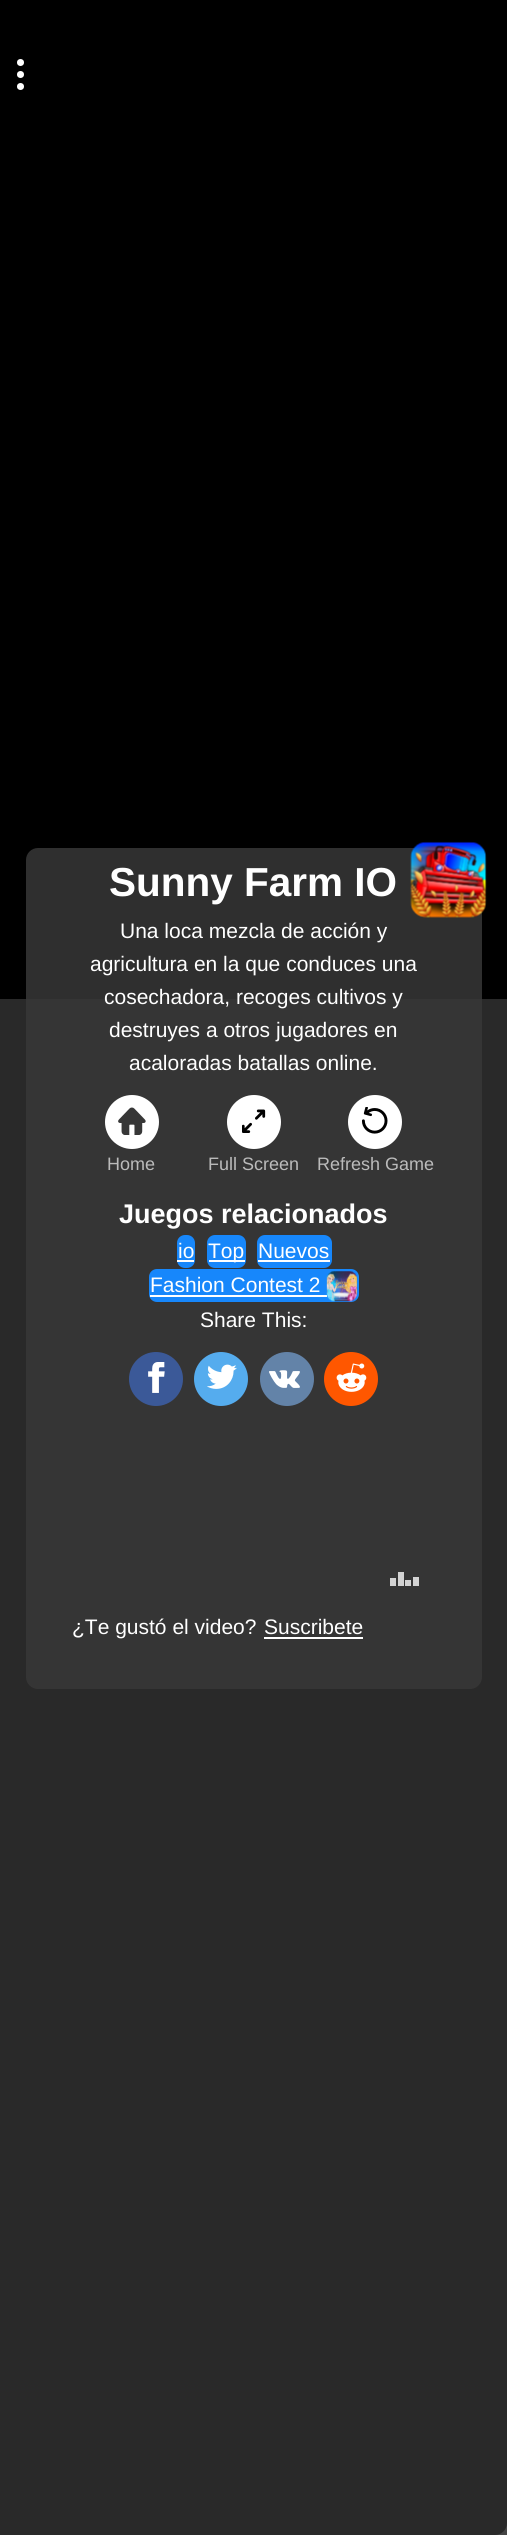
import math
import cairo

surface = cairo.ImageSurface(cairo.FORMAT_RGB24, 507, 2535)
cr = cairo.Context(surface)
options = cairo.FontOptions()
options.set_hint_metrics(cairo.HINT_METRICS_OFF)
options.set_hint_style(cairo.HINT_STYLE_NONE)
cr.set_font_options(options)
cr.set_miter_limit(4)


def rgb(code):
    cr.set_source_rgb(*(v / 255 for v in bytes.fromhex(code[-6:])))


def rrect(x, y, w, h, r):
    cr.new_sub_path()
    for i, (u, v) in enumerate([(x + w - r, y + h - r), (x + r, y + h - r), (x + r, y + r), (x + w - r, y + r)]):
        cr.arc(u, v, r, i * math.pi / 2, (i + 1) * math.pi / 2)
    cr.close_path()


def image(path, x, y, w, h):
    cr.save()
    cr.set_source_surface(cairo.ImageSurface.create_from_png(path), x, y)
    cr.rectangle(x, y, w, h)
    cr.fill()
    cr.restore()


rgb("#444444")
cr.paint()
rgb("#000000")
cr.rectangle(0, 0, 507, 999)
cr.fill()
cr.set_source_rgba(0, 0, 0, 0.4)
cr.new_path()
cr.move_to(0, 0)
cr.line_to(495, 0)
cr.curve_to(501.5, 0, 507, 5.5, 507, 12)
cr.line_to(507, 2523)
cr.curve_to(507, 2529.5, 501.5, 2535, 495, 2535)
cr.line_to(0, 2535)
cr.close_path()
cr.fill()
rgb("#ffffff")
cr.arc(20.5, 62.5, 3.5, 0, 2 * math.pi)
cr.fill()
cr.arc(20.5, 74.5, 3.5, 0, 2 * math.pi)
cr.fill()
cr.arc(20.5, 86.5, 3.5, 0, 2 * math.pi)
cr.fill()
cr.set_source_rgba(0.216, 0.216, 0.216, 0.85)
rrect(26, 848, 456, 841, 12)
cr.fill()
rgb("#ffffff")
cr.arc(132, 1122, 27, 0, 2 * math.pi)
cr.fill()
image("img/1.png", 118, 1107, 28, 28)
cr.arc(254, 1122, 27, 0, 2 * math.pi)
cr.fill()
image("img/2.png", 242, 1109, 24, 24)
cr.arc(375, 1122, 27, 0, 2 * math.pi)
cr.fill()
image("img/3.png", 362, 1107, 26, 27)
image("img/4.png", 410, 841, 77, 77)
rgb("#1787fb")
rrect(177, 1235, 18, 33, 8)
cr.fill()
rgb("#ffffff")
cr.rectangle(177, 1260, 17, 2)
cr.fill()
rgb("#1787fb")
rrect(207, 1235, 39, 33, 8)
cr.fill()
rgb("#ffffff")
cr.rectangle(209, 1260, 36, 2)
cr.fill()
rgb("#1787fb")
rrect(257, 1235, 75, 33, 8)
cr.fill()
rgb("#ffffff")
cr.rectangle(258, 1260, 72, 2)
cr.fill()
rgb("#1787fb")
rrect(149, 1269, 210, 33, 8)
cr.fill()
rgb("#ffffff")
cr.rectangle(150, 1295, 177, 2)
cr.fill()
image("img/5.png", 326, 1271, 31, 31)
rgb("#3b5998")
cr.arc(156, 1379, 27, 0, 2 * math.pi)
cr.fill()
image("img/6.png", 148, 1362, 17, 31)
rgb("#55acee")
cr.arc(221, 1379, 27, 0, 2 * math.pi)
cr.fill()
image("img/7.png", 207, 1364, 30, 25)
rgb("#6383a8")
cr.arc(287, 1379, 27, 0, 2 * math.pi)
cr.fill()
image("img/8.png", 269, 1370, 31, 18)
rgb("#ff5700")
cr.arc(351, 1379, 27, 0, 2 * math.pi)
cr.fill()
image("img/9.png", 336, 1363, 31, 29)
for x, y, w, h, color in [
    (390, 1578, 6, 8, "#d3d3d3"),
    (398, 1572, 6, 14, "#d3d3d3"),
    (405, 1580, 6, 6, "#d3d3d3"),
    (413, 1577, 6, 9, "#d3d3d3"),
    (264, 1637, 99, 2, "#ffffff"),
]:
    rgb(color)
    cr.rectangle(x, y, w, h)
    cr.fill()
cr.select_font_face("Liberation Sans", cairo.FONT_SLANT_NORMAL, cairo.FONT_WEIGHT_BOLD)
cr.set_font_size(40.5)
cr.move_to(109, 896)
cr.show_text("Sunny Farm IO")
cr.select_font_face("Liberation Sans")
cr.set_font_size(21)
for x, y, s in [
    (120, 938, "Una loca mezcla de acción y"),
    (90, 971, "agricultura en la que conduces una"),
    (104, 1004, "cosechadora, recoges cultivos y"),
    (109, 1037, "destruyes a otros jugadores en"),
    (129, 1070, "acaloradas batallas online."),
]:
    cr.move_to(x, y)
    cr.show_text(s)
cr.set_font_size(18)
rgb("#bbbbbb")
for x, y, s in [
    (107, 1170, "Home"),
    (208, 1170, "Full Screen"),
    (317, 1170, "Refresh Game"),
]:
    cr.move_to(x, y)
    cr.show_text(s)
cr.select_font_face("Liberation Sans", cairo.FONT_SLANT_NORMAL, cairo.FONT_WEIGHT_BOLD)
cr.set_font_size(27)
rgb("#ffffff")
cr.move_to(119, 1223)
cr.show_text("Juegos relacionados")
cr.select_font_face("Liberation Sans")
cr.set_font_size(21)
for x, y, s in [
    (178, 1258, "io"),
    (208, 1258, "Top"),
    (258, 1258, "Nuevos"),
    (150, 1292, "Fashion Contest 2"),
    (200, 1327, "Share This:"),
    (72, 1634, "¿Te gustó el video?"),
    (264, 1634, "Suscribete"),
]:
    cr.move_to(x, y)
    cr.show_text(s)
surface.write_to_png("page.png")
